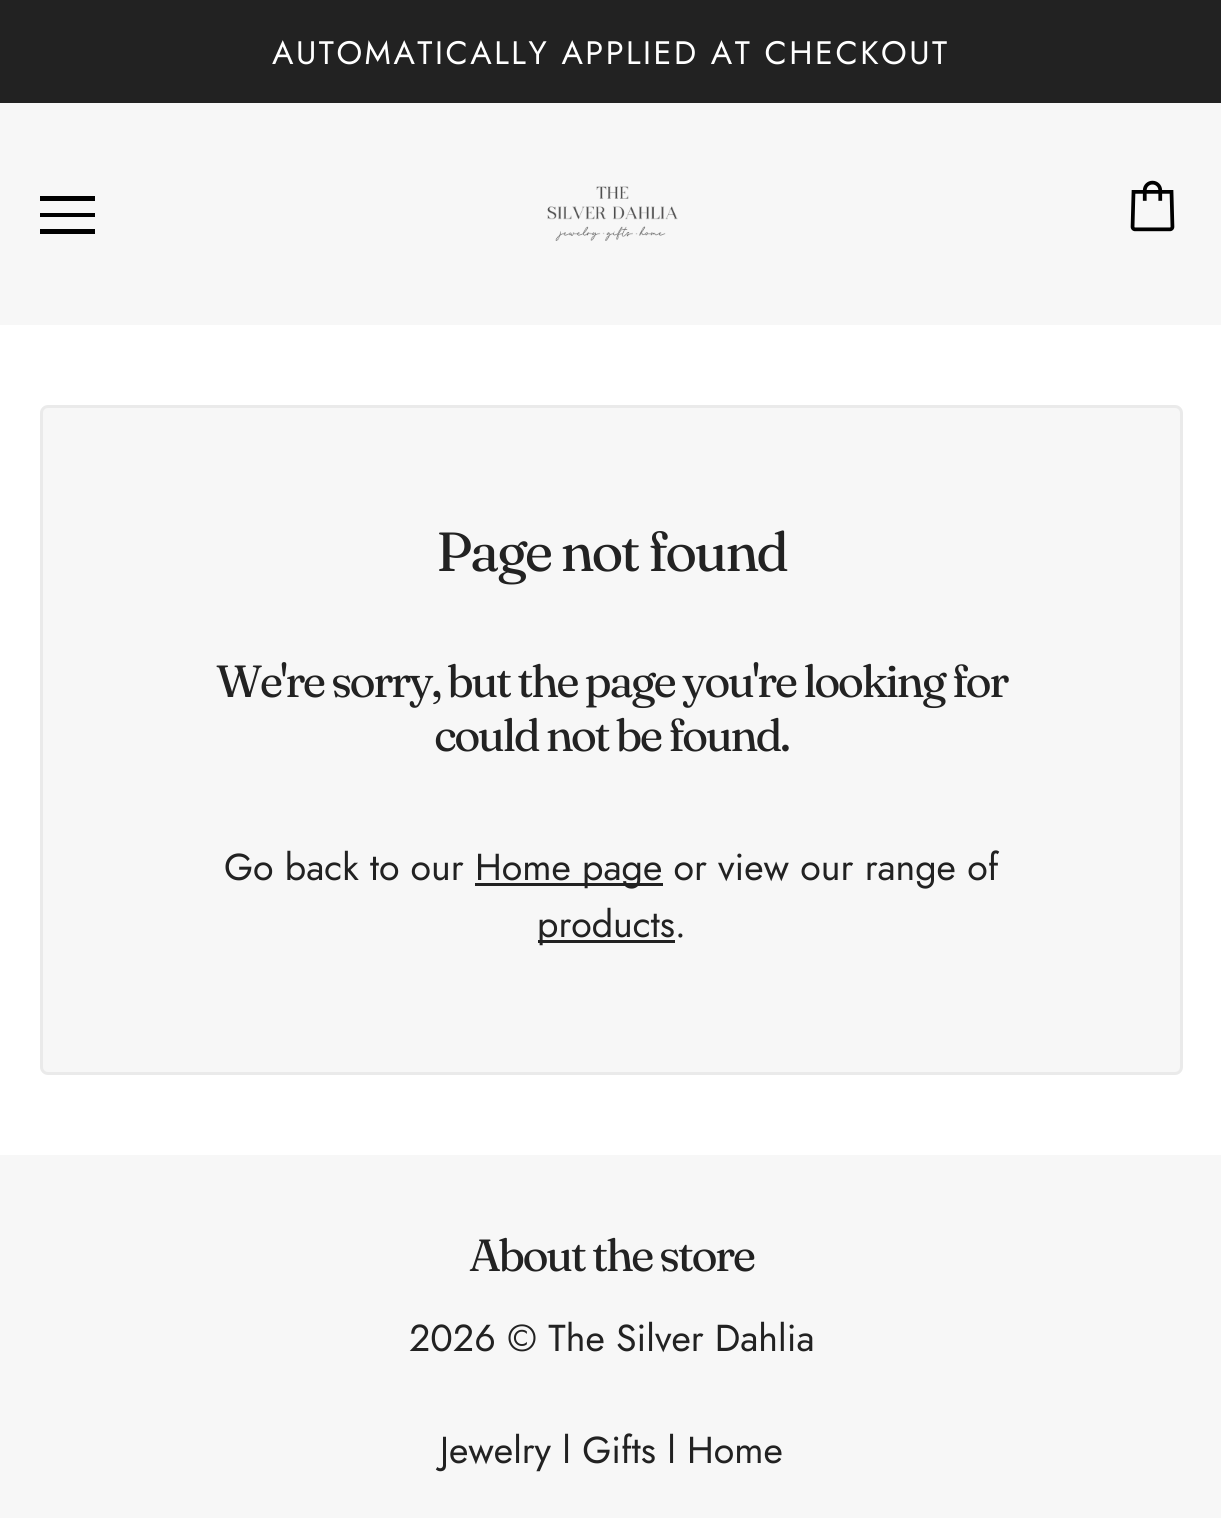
import math
import cairo

surface = cairo.ImageSurface(cairo.FORMAT_RGB24, 1221, 1518)
cr = cairo.Context(surface)
options = cairo.FontOptions()
options.set_hint_metrics(cairo.HINT_METRICS_OFF)
options.set_hint_style(cairo.HINT_STYLE_NONE)
cr.set_font_options(options)
cr.set_miter_limit(4)


def rgb(code):
    cr.set_source_rgb(*(v / 255 for v in bytes.fromhex(code[-6:])))


def tracked(x, y, s, letter, word):
    cr.move_to(x, y)
    for ch in s:
        cr.show_text(ch)
        cr.rel_move_to(letter + word * (ch == ' '), 0)


def rrect(x, y, w, h, r):
    cr.new_sub_path()
    for i, (u, v) in enumerate([(x + w - r, y + h - r), (x + r, y + h - r), (x + r, y + r), (x + w - r, y + r)]):
        cr.arc(u, v, r, i * math.pi / 2, (i + 1) * math.pi / 2)
    cr.close_path()


def image(path, x, y, w, h):
    cr.save()
    cr.set_source_surface(cairo.ImageSurface.create_from_png(path), x, y)
    cr.rectangle(x, y, w, h)
    cr.fill()
    cr.restore()


rgb("#ffffff")
cr.paint()
rgb("#222222")
cr.rectangle(0, 0, 1221, 103)
cr.fill()
rgb("#f7f7f7")
cr.rectangle(0, 103, 1221, 222)
cr.fill()
rgb("#000000")
cr.new_path()
cr.move_to(40, 201)
cr.line_to(40, 196)
cr.line_to(95, 196)
cr.line_to(95, 201)
cr.close_path()
cr.move_to(40, 217)
cr.line_to(40, 213)
cr.line_to(95, 213)
cr.line_to(95, 217)
cr.close_path()
cr.move_to(40, 234)
cr.line_to(40, 229)
cr.line_to(95, 229)
cr.line_to(95, 234)
cr.close_path()
cr.fill()
image("img/1.png", 547, 186, 131, 55)
image("img/2.png", 1130, 180, 45, 52)
rgb("#f7f7f7")
rrect(41.5, 406.5, 1140, 667, 6.5)
cr.fill_preserve()
rgb("#eaeaea")
cr.set_line_width(3)
cr.stroke()
for x, y, w, h, color in [
    (475, 883, 188, 3, "#222222"),
    (538, 940, 137, 3, "#222222"),
    (0, 1155, 1221, 363, "#f7f7f7"),
]:
    rgb(color)
    cr.rectangle(x, y, w, h)
    cr.fill()
cr.select_font_face("Jost")
cr.set_font_size(32.5)
rgb("#ffffff")
tracked(272, 64, "AUTOMATICALLY APPLIED AT CHECKOUT", 2.5, 0)
cr.select_font_face("Fraunces")
cr.set_font_size(55)
rgb("#222222")
tracked(436, 571, "Page not found", -2.5, 0)
cr.select_font_face("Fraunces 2")
cr.set_font_size(45)
tracked(216, 697, "We're sorry, but the page you're looking for", -2.5, 0)
tracked(434, 751, "could not be found.", -2.5, 0)
cr.select_font_face("Jost")
cr.set_font_size(37.5)
for x, y, s in [
    (224, 880, "Go back to our"),
    (475, 880, "Home page or view our range of"),
    (537, 937, "products."),
]:
    cr.move_to(x, y)
    cr.show_text(s)
cr.select_font_face("Fraunces 2")
cr.set_font_size(45)
tracked(469, 1271, "About the store", -2.5, 0)
cr.select_font_face("Jost")
cr.set_font_size(37.5)
cr.move_to(409, 1351)
cr.show_text("2026 © The Silver Dahlia")
cr.move_to(440, 1463)
cr.show_text("Jewelry l Gifts l Home")
surface.write_to_png("page.png")
